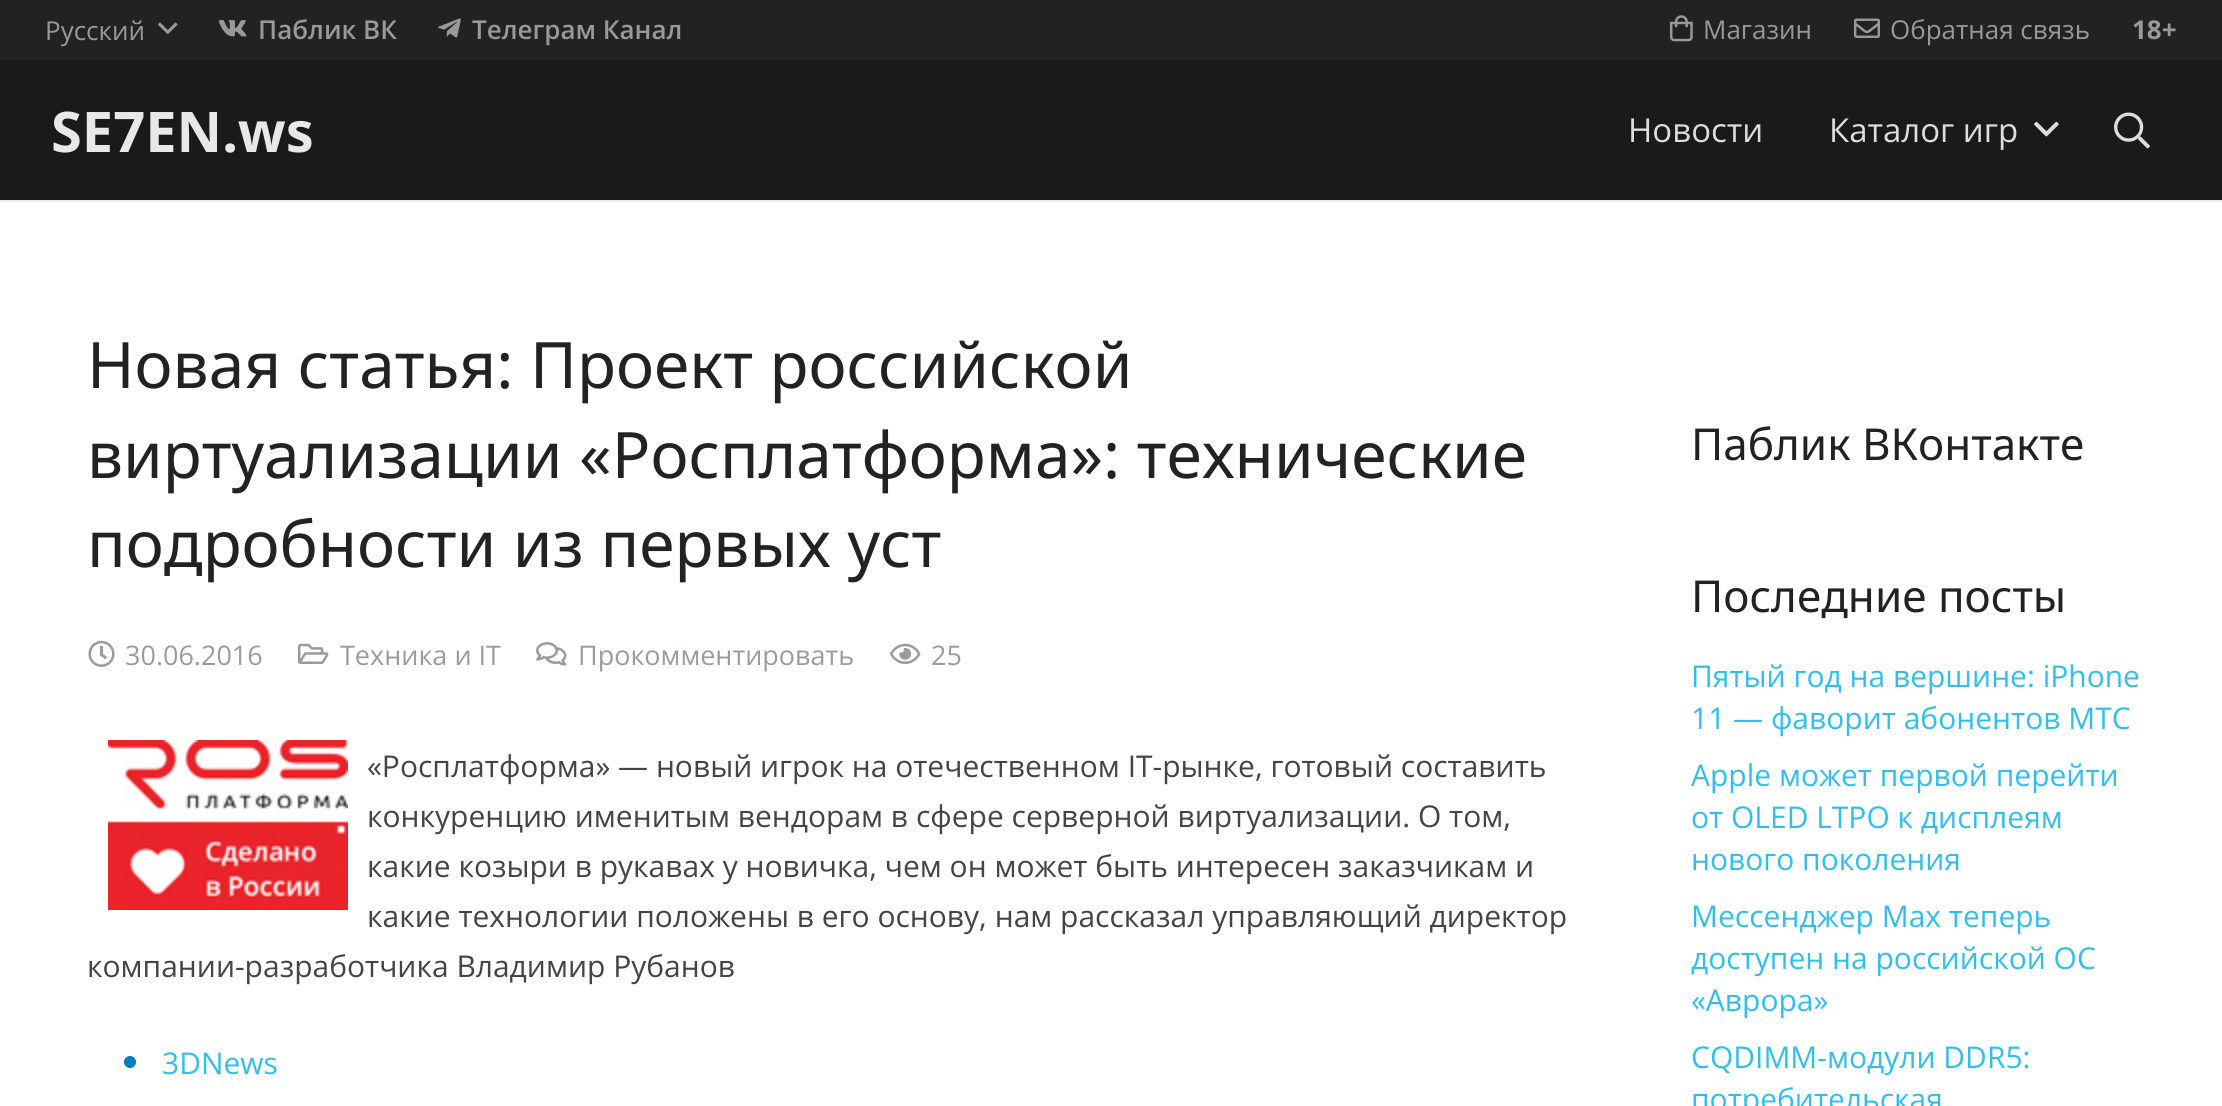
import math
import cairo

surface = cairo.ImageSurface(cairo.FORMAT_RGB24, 2222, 1106)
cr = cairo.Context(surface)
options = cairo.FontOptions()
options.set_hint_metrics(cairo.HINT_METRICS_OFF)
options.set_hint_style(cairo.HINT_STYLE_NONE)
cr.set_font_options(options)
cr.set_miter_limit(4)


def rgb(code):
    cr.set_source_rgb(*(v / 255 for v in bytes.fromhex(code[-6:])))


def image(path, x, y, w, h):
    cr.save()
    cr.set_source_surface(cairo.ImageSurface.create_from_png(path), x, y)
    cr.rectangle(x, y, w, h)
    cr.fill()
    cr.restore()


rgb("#ffffff")
cr.paint()
rgb("#222222")
cr.rectangle(0, 0, 2222, 60)
cr.fill()
image("img/1.png", 158, 22, 20, 13)
image("img/2.png", 219, 20, 28, 17)
image("img/3.png", 438, 18, 23, 20)
image("img/4.png", 1670, 15, 23, 27)
image("img/5.png", 1854, 18, 26, 20)
rgb("#ebebeb")
cr.rectangle(0, 200, 2222, 2)
cr.fill()
rgb("#1a1a1a")
cr.rectangle(0, 60, 2222, 140)
cr.fill()
image("img/6.png", 2034, 121, 25, 16)
image("img/7.png", 2114, 112, 36, 37)
image("img/8.png", 88, 640, 27, 27)
image("img/9.png", 298, 643, 31, 21)
image("img/10.png", 536, 642, 31, 24)
image("img/11.png", 890, 643, 31, 21)
image("img/12.png", 108, 740, 240, 170)
rgb("#027eba")
cr.arc(130, 1062, 6, 0, 2 * math.pi)
cr.fill()
cr.select_font_face("Open Sans")
cr.set_font_size(26)
rgb("#999999")
cr.move_to(45, 40)
cr.show_text("Русский")
cr.select_font_face("Open Sans SemiBold")
cr.move_to(258, 39)
cr.show_text("Паблик ВК")
cr.move_to(472, 39)
cr.show_text("Телеграм Канал")
cr.select_font_face("Open Sans")
cr.move_to(1703, 39)
cr.show_text("Магазин")
cr.move_to(1890, 39)
cr.show_text("Обратная связь")
cr.select_font_face("Noto Sans", cairo.FONT_SLANT_NORMAL, cairo.FONT_WEIGHT_BOLD)
cr.move_to(2132, 39)
cr.show_text("18+")
cr.set_font_size(56)
rgb("#e8e8e8")
cr.move_to(51, 152)
cr.show_text("SE7EN.ws")
cr.select_font_face("Open Sans")
cr.set_font_size(33)
rgb("#dddddd")
cr.move_to(1628, 142)
cr.show_text("Новости")
cr.move_to(1829, 142)
cr.show_text("Каталог игр")
cr.select_font_face("Noto Sans")
cr.set_font_size(64)
rgb("#222222")
for x, y, s in [
    (87, 388, "Новая статья: Проект российской"),
    (87, 478, "виртуализации «Росплатформа»: технические"),
    (87, 567, "подробности из первых уст"),
]:
    cr.move_to(x, y)
    cr.show_text(s)
cr.select_font_face("Open Sans")
cr.set_font_size(27)
rgb("#999c9f")
for x, y, s in [
    (125, 665, "30.06.2016"),
    (340, 665, "Техника и IT"),
    (578, 665, "Прокомментировать"),
    (931, 665, "25"),
]:
    cr.move_to(x, y)
    cr.show_text(s)
cr.set_font_size(30)
rgb("#444444")
for x, y, s in [
    (367, 777, "«Росплатформа» — новый игрок на отечественном IT-рынке, готовый составить"),
    (367, 827, "конкуренцию именитым вендорам в сфере серверной виртуализации. О том,"),
    (367, 877, "какие козыри в рукавах у новичка, чем он может быть интересен заказчикам и"),
    (367, 927, "какие технологии положены в его основу, нам рассказал управляющий директор"),
    (87, 977, "компании-разработчика Владимир Рубанов"),
]:
    cr.move_to(x, y)
    cr.show_text(s)
rgb("#32beeb")
cr.move_to(162, 1074)
cr.show_text("3DNews")
cr.select_font_face("Noto Sans")
cr.set_font_size(44)
rgb("#222222")
cr.move_to(1691, 460)
cr.show_text("Паблик ВКонтакте")
cr.move_to(1691, 612)
cr.show_text("Последние посты")
cr.select_font_face("Open Sans")
cr.set_font_size(30)
rgb("#32beeb")
for x, y, s in [
    (1691, 687, "Пятый год на вершине: iPhone"),
    (1691, 729, "11 — фаворит абонентов МТС"),
    (1691, 786, "Apple может первой перейти"),
    (1691, 828, "от OLED LTPO к дисплеям"),
    (1691, 870, "нового поколения"),
    (1691, 927, "Мессенджер Max теперь"),
    (1691, 969, "доступен на российской ОС"),
    (1691, 1011, "«Аврора»"),
    (1691, 1068, "CQDIMM-модули DDR5:"),
    (1691, 1110, "потребительская"),
]:
    cr.move_to(x, y)
    cr.show_text(s)
surface.write_to_png("page.png")
